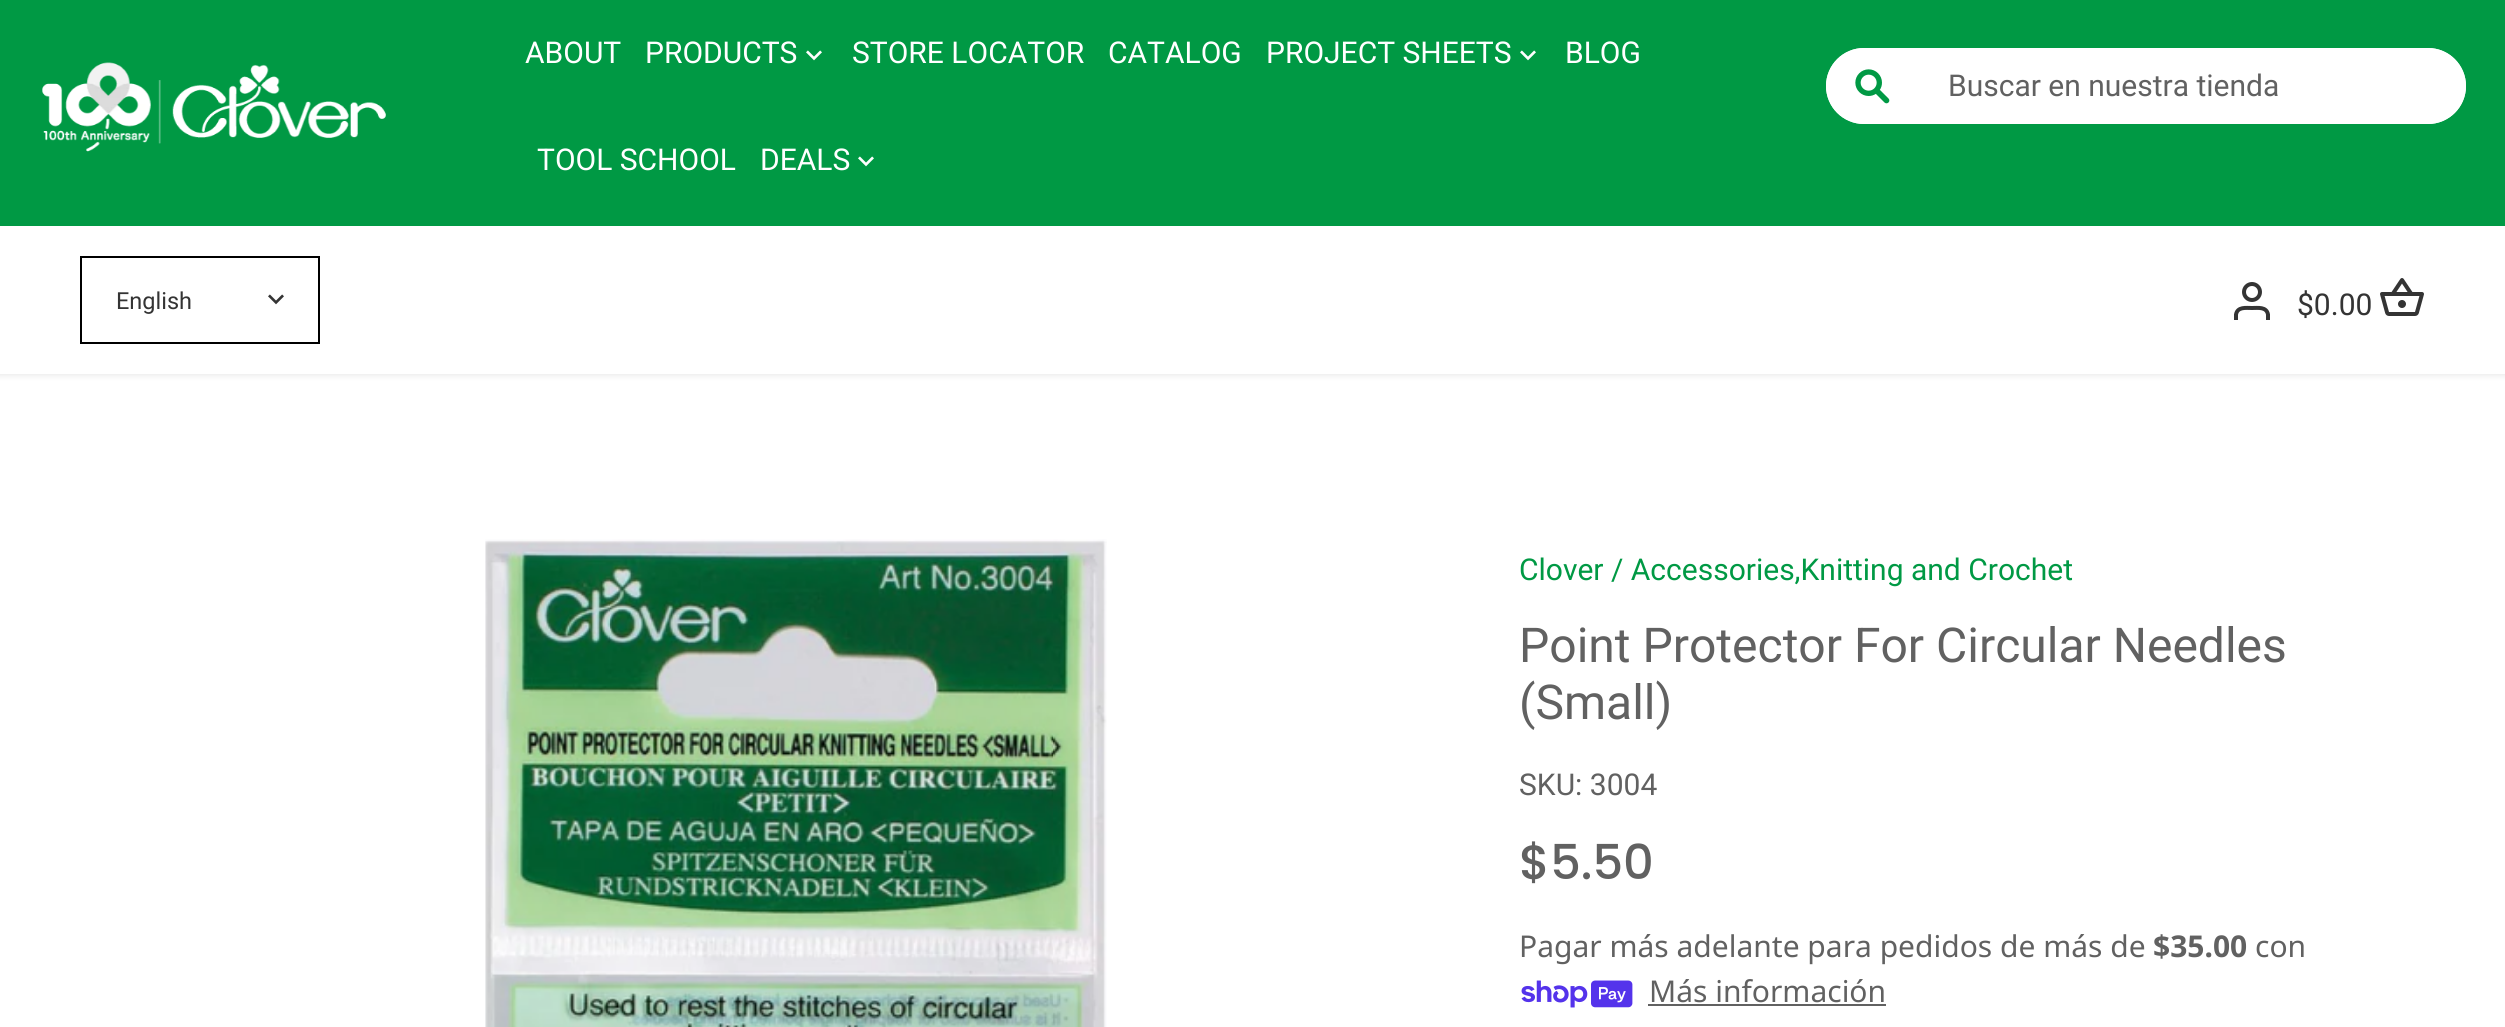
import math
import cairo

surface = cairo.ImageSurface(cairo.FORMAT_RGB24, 2505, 1027)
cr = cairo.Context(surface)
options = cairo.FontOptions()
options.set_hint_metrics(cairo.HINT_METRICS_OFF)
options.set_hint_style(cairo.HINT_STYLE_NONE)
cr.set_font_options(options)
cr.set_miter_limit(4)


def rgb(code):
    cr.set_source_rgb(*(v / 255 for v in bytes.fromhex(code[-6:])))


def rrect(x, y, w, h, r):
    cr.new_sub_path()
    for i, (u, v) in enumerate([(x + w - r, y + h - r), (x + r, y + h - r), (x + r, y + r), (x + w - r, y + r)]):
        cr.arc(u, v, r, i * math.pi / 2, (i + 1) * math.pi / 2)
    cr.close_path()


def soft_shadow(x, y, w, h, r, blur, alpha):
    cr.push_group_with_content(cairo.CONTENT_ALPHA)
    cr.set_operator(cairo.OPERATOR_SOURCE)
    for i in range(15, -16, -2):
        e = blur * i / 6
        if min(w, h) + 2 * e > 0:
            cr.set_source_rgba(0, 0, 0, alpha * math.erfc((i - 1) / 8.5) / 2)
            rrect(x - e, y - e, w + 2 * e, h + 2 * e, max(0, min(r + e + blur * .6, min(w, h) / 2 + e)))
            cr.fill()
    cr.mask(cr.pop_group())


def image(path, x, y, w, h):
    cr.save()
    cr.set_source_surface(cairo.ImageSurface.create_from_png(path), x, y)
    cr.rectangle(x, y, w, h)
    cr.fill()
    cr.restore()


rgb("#ffffff")
cr.paint()
rgb("#000000")
soft_shadow(-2, -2, 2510, 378, 0, 3, 0.08)
rgb("#009944")
cr.rectangle(0, 0, 2505, 226)
cr.fill()
image("img/1.png", 42, 62, 344, 90)
image("img/2.png", 806, 50, 16, 11)
image("img/2.png", 1520, 50, 16, 11)
image("img/2.png", 858, 156, 16, 11)
rgb("#ffffff")
rrect(1826, 48, 640, 76, 38)
cr.fill()
cr.new_path()
cr.move_to(1864, 48)
cr.line_to(1918, 48)
cr.line_to(1918, 124)
cr.line_to(1864, 124)
cr.curve_to(1843, 124, 1826, 107, 1826, 86)
cr.curve_to(1826, 65, 1843, 48, 1864, 48)
cr.close_path()
cr.fill()
image("img/3.png", 1855, 69, 35, 35)
rrect(1918, 48, 548, 76, 38)
cr.fill()
cr.rectangle(0, 226, 2505, 148)
cr.fill()
cr.rectangle(81, 257, 238, 86)
rgb("#000000")
cr.stroke()
image("img/4.png", 268, 294, 16, 11)
cr.arc(2252, 292, 8, 0, 2 * math.pi)
rgb("#343434")
cr.set_line_width(4)
cr.stroke()
cr.new_path()
cr.move_to(2268, 320)
cr.line_to(2268, 314.5)
cr.curve_to(2266.5, 306.5, 2258, 308, 2252, 308)
cr.curve_to(2246, 308, 2237.5, 306.5, 2236, 314.5)
cr.line_to(2236, 320)
cr.stroke()
image("img/5.png", 2380, 278, 44, 38)
image("img/6.png", 485, 539, 622, 488)
image("img/7.png", 1521, 980, 112, 28)
rgb("#616161")
cr.rectangle(1648, 1004, 238, 2)
cr.fill()
cr.select_font_face("Roboto")
cr.set_font_size(30)
rgb("#ffffff")
for x, y, s in [
    (525, 63, "ABOUT"),
    (645, 63, "PRODUCTS"),
    (852, 63, "STORE LOCATOR"),
    (1108, 63, "CATALOG"),
    (1266, 63, "PROJECT SHEETS"),
    (1565, 63, "BLOG"),
    (537, 170, "TOOL SCHOOL"),
    (760, 170, "DEALS"),
]:
    cr.move_to(x, y)
    cr.show_text(s)
rgb("#616161")
cr.move_to(1948, 96)
cr.show_text("Buscar en nuestra tienda")
cr.set_font_size(23.5)
rgb("#343434")
cr.move_to(116, 309)
cr.show_text("English")
cr.set_font_size(30)
cr.move_to(2297, 315)
cr.show_text("$0.00")
rgb("#009944")
cr.move_to(1519, 580)
cr.show_text("Clover / Accessories,Knitting and Crochet")
cr.set_font_size(48)
rgb("#616161")
cr.move_to(1519, 662)
cr.show_text("Point Protector For Circular Needles")
cr.move_to(1519, 719)
cr.show_text("(Small)")
cr.set_font_size(30)
cr.move_to(1519, 795)
cr.show_text("SKU: 3004")
cr.select_font_face("Poppins Medium")
cr.set_font_size(48)
cr.move_to(1519, 879)
cr.show_text("$5.50")
cr.select_font_face("Noto Sans")
cr.set_font_size(30)
cr.move_to(1519, 957)
cr.show_text("Pagar más adelante para pedidos de más de")
cr.select_font_face("Noto Sans", cairo.FONT_SLANT_NORMAL, cairo.FONT_WEIGHT_BOLD)
cr.move_to(2153, 957)
cr.show_text("$35.00")
cr.select_font_face("Noto Sans")
cr.move_to(2255, 957)
cr.show_text("con")
cr.move_to(1649, 1002)
cr.show_text("Más información")
surface.write_to_png("page.png")
